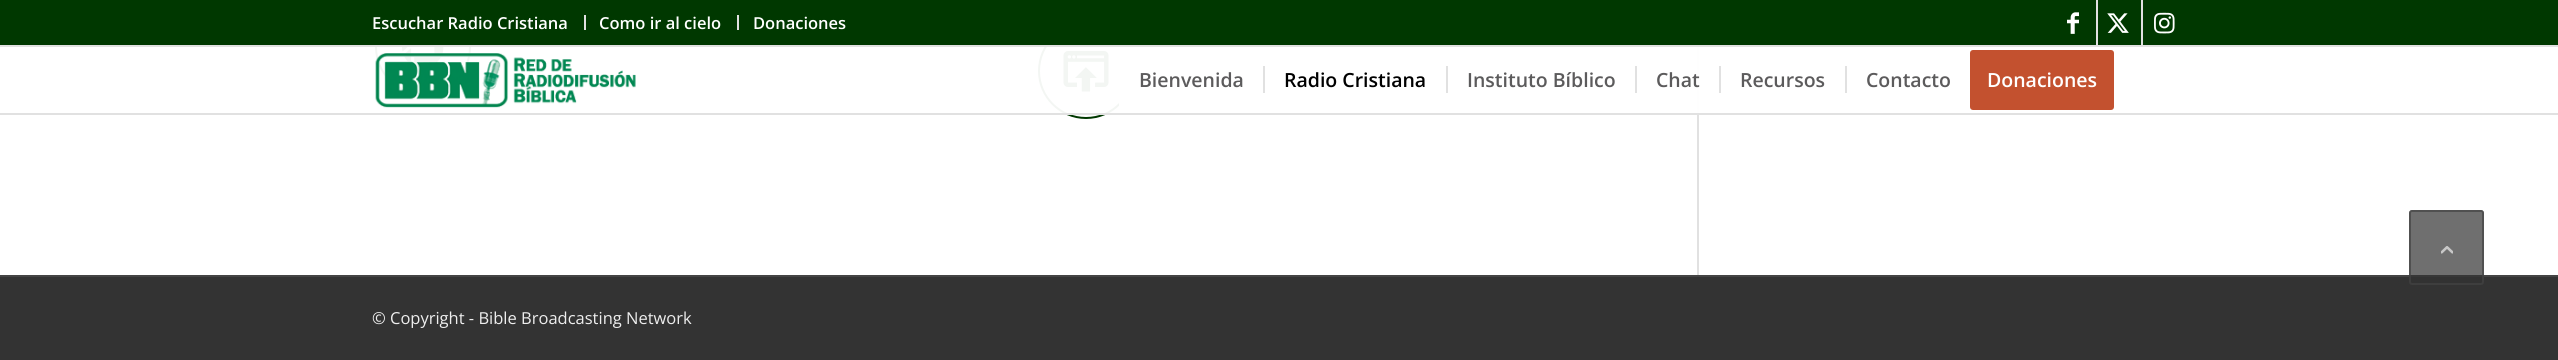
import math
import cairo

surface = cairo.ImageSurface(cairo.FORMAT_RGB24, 2558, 360)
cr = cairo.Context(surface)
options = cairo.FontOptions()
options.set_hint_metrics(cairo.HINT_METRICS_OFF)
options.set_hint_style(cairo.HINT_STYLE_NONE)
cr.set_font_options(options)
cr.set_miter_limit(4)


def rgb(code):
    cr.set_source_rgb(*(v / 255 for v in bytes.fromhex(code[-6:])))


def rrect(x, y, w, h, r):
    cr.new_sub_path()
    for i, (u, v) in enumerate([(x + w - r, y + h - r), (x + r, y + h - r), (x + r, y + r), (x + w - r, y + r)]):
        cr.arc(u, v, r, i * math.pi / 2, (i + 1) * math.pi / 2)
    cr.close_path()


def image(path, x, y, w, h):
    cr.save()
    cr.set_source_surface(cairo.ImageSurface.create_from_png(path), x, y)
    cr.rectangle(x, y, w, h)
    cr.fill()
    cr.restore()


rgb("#ffffff")
cr.paint()
cr.arc(423, 47, 47, 0, 2 * math.pi)
rgb("#003800")
cr.stroke()
cr.arc(1086, 71, 47, 0, 2 * math.pi)
cr.stroke()
for x, y, w, h, color in [
    (0, 0, 2558, 45, "#003800"),
    (0, 45, 2558, 2, "#e1e1e1"),
    (584, 15, 2, 15, "#e1e1e1"),
    (737, 15, 2, 15, "#e1e1e1"),
    (2096, 0, 2, 45, "#e1e1e1"),
]:
    rgb(color)
    cr.rectangle(x, y, w, h)
    cr.fill()
image("img/1.png", 2067, 12, 12, 22)
cr.rectangle(2141, 0, 2, 45)
cr.fill()
image("img/2.png", 2107, 13, 22, 20)
image("img/3.png", 2154, 12, 21, 22)
cr.rectangle(1697, 47, 2, 228)
cr.fill()
image("img/5.png", 402, 47, 42, 21)
image("img/6.png", 1063, 51, 46, 41)
cr.set_source_rgba(1, 1, 1, 0.95)
cr.rectangle(375, 47, 1324, 66)
cr.fill()
rgb("#e1e1e1")
cr.rectangle(0, 113, 2558, 2)
cr.fill()
image("img/4.png", 375, 53, 261, 55)
for x, y, w, h, color in [
    (1119, 47, 15, 59, "#ffffff"),
    (1263, 66, 2, 27, "#e1e1e1"),
    (1446, 66, 2, 27, "#e1e1e1"),
    (1635, 66, 2, 27, "#e1e1e1"),
    (1719, 66, 2, 27, "#e1e1e1"),
    (1845, 66, 2, 27, "#e1e1e1"),
]:
    rgb(color)
    cr.rectangle(x, y, w, h)
    cr.fill()
rgb("#c3512f")
rrect(1971.5, 51.5, 141, 57, 1.5)
cr.fill_preserve()
cr.set_line_width(3)
cr.stroke()
rgb("#333333")
cr.rectangle(0, 277, 2558, 83)
cr.fill()
rgb("#444444")
cr.rectangle(0, 275, 2558, 2)
cr.fill()
cr.set_source_rgba(0.2, 0.2, 0.2, 0.7)
rrect(2409, 210, 75, 75, 3)
cr.fill()
rrect(2410, 211, 73, 73, 2)
cr.set_source_rgba(0.267, 0.267, 0.267, 0.7)
cr.set_line_width(2)
cr.stroke()
image("img/7.png", 2441, 246, 12, 8)
cr.select_font_face("Open Sans SemiBold")
cr.set_font_size(16.5)
rgb("#ffffff")
for x, y, s in [
    (372, 29, "Escuchar Radio Cristiana"),
    (599, 29, "Como ir al cielo"),
    (753, 29, "Donaciones"),
]:
    cr.move_to(x, y)
    cr.show_text(s)
cr.set_font_size(19.5)
rgb("#5c5b5c")
cr.move_to(1139, 87)
cr.show_text("Bienvenida")
rgb("#000000")
cr.move_to(1284, 87)
cr.show_text("Radio Cristiana")
rgb("#5c5b5c")
for x, y, s in [
    (1467, 87, "Instituto Bíblico"),
    (1656, 87, "Chat"),
    (1740, 87, "Recursos"),
    (1866, 87, "Contacto"),
]:
    cr.move_to(x, y)
    cr.show_text(s)
rgb("#ffffff")
cr.move_to(1987, 87)
cr.show_text("Donaciones")
cr.select_font_face("Open Sans")
cr.set_font_size(16.5)
rgb("#eeeeee")
cr.move_to(372, 324)
cr.show_text("© Copyright - Bible Broadcasting Network")
surface.write_to_png("page.png")
